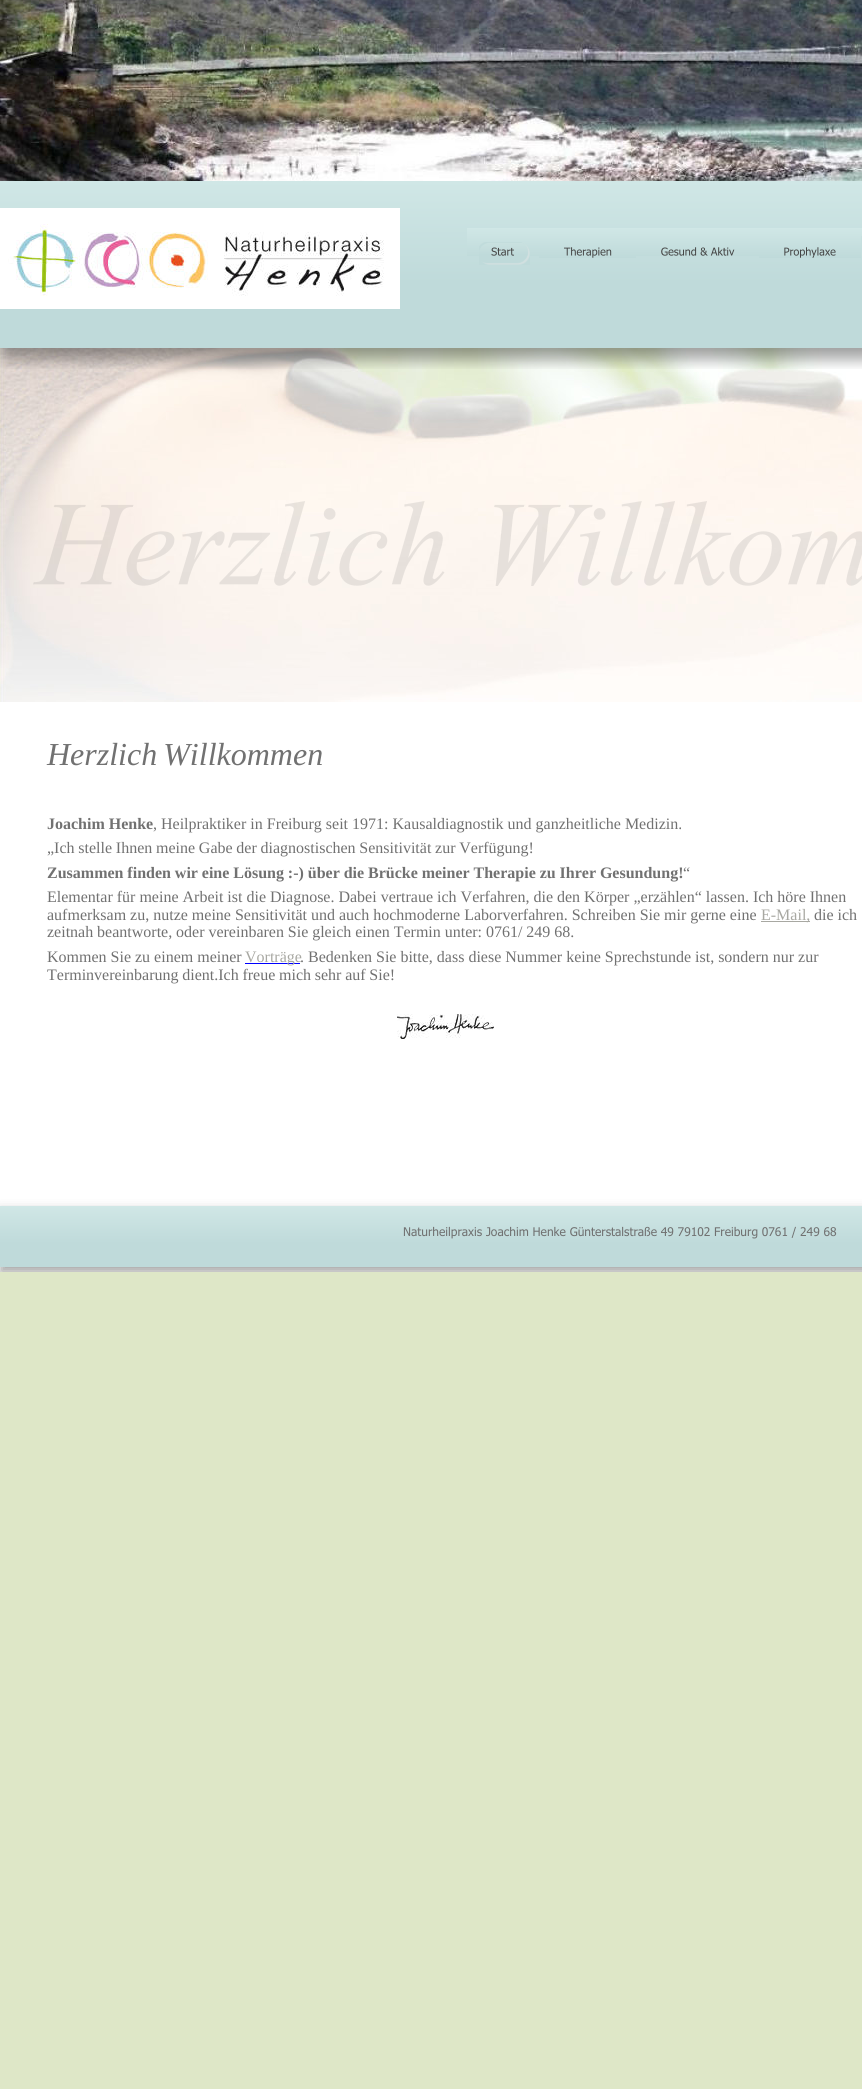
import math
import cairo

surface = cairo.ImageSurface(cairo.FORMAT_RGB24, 862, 2089)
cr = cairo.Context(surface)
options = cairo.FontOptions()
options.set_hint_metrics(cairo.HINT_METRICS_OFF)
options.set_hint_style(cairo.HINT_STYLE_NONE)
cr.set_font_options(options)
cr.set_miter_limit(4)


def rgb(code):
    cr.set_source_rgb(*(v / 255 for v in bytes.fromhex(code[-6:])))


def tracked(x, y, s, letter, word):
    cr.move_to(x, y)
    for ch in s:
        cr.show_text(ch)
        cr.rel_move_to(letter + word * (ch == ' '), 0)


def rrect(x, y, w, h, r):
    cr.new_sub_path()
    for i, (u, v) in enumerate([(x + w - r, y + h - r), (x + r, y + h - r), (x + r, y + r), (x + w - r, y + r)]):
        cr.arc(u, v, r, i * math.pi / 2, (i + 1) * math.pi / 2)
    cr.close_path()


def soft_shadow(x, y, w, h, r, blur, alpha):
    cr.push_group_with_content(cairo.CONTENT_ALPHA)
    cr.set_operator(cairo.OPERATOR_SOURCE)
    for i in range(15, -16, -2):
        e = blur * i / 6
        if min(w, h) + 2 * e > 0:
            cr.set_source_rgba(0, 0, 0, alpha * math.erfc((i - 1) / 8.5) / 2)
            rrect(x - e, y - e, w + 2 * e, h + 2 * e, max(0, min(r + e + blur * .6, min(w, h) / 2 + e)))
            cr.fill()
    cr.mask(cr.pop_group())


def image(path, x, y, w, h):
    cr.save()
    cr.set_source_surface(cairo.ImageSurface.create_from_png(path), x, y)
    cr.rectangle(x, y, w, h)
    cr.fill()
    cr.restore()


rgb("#dee7c7")
cr.paint()
image("img/10.png", 0, 348, 862, 354)
image("img/8.png", 0, 181, 862, 188)
image("img/1.png", 467, 228, 72, 28)
image("img/2.png", 479, 242, 51, 23)
image("img/3.png", 539, 228, 97, 30)
image("img/4.png", 636, 228, 123, 28)
image("img/5.png", 759, 228, 102, 30)
image("img/6.png", 861, 228, 1, 8)
rgb("#ffffff")
cr.rectangle(0, 702, 862, 570)
cr.fill()
image("img/7.png", 0, 0, 862, 181)
image("img/9.png", 0, 208, 400, 101)
image("img/11.png", 33, 501, 829, 85)
rgb("#a8a8a2")
cr.rectangle(761, 921, 49, 1)
cr.fill()
rgb("#0000ff")
cr.rectangle(245, 963, 55, 1)
cr.fill()
image("img/12.png", 397, 1014, 97, 25)
cr.save()
cr.rectangle(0, 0, 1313, 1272)
cr.clip()
rgb("#000000")
soft_shadow(0, 1212, 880, 61, 0, 6, 0.35)
cr.restore()
gradient = cairo.LinearGradient(657, 1206, 657, 1267)
gradient.add_color_stop_rgba(0, 0.816, 0.906, 0.902, 1)
gradient.add_color_stop_rgba(0.61, 0.749, 0.855, 0.855, 1)
cr.set_source(gradient)
cr.rectangle(0, 1206, 862, 61)
cr.fill()
cr.select_font_face("Liberation Serif", cairo.FONT_SLANT_ITALIC)
cr.set_font_size(32)
rgb("#717171")
tracked(47, 765, "Herzlich Willkommen", 0, -2)
cr.select_font_face("Liberation Serif", cairo.FONT_SLANT_NORMAL, cairo.FONT_WEIGHT_BOLD)
cr.set_font_size(16)
cr.move_to(47, 829)
cr.show_text("Joachim Henke")
cr.select_font_face("Liberation Serif")
cr.move_to(153, 829)
cr.show_text(", Heilpraktiker in Freiburg seit 1971: Kausaldiagnostik und ganzheitliche Medizin.")
tracked(47, 853, "„Ich stelle Ihnen meine Gabe der diagnostischen Sensitivität zur Verfügung!", 0, -0.25)
cr.select_font_face("Liberation Serif", cairo.FONT_SLANT_NORMAL, cairo.FONT_WEIGHT_BOLD)
tracked(47, 878, "Zusammen finden wir eine Lösung :-) über die Brücke meiner Therapie zu Ihrer Gesundung!", 0, -0.1)
cr.select_font_face("Liberation Serif")
for x, y, s in [
    (683, 878, "“"),
    (47, 902, "Elementar für meine Arbeit ist die Diagnose. Dabei vertraue ich Verfahren, die den Körper „erzählen“ lassen. Ich höre Ihnen"),
    (47, 920, "aufmerksam zu, nutze meine Sensitivität und auch hochmoderne Laborverfahren. Schreiben Sie mir gerne eine"),
]:
    cr.move_to(x, y)
    cr.show_text(s)
rgb("#a8a8a2")
cr.move_to(761, 920)
cr.show_text("E-Mail,")
rgb("#717171")
cr.move_to(814, 920)
cr.show_text("die ich")
tracked(47, 937, "zeitnah beantworte, oder vereinbaren Sie gleich einen Termin unter: 0761/ 249 68.", 0, -0.1)
cr.move_to(47, 962)
cr.show_text("Kommen Sie zu einem meiner")
rgb("#a8a8a2")
cr.move_to(245, 962)
cr.show_text("Vorträge")
rgb("#717171")
cr.move_to(300, 962)
cr.show_text(". Bedenken Sie bitte, dass diese Nummer keine Sprechstunde ist, sondern nur zur")
tracked(47, 980, "Terminvereinbarung dient.Ich freue mich sehr auf Sie!", 0, -0.25)
cr.select_font_face("Tahoma")
cr.set_font_size(12)
cr.move_to(403, 1236)
cr.show_text("Naturheilpraxis Joachim Henke Günterstalstraße 49 79102 Freiburg 0761 / 249 68")
surface.write_to_png("page.png")
